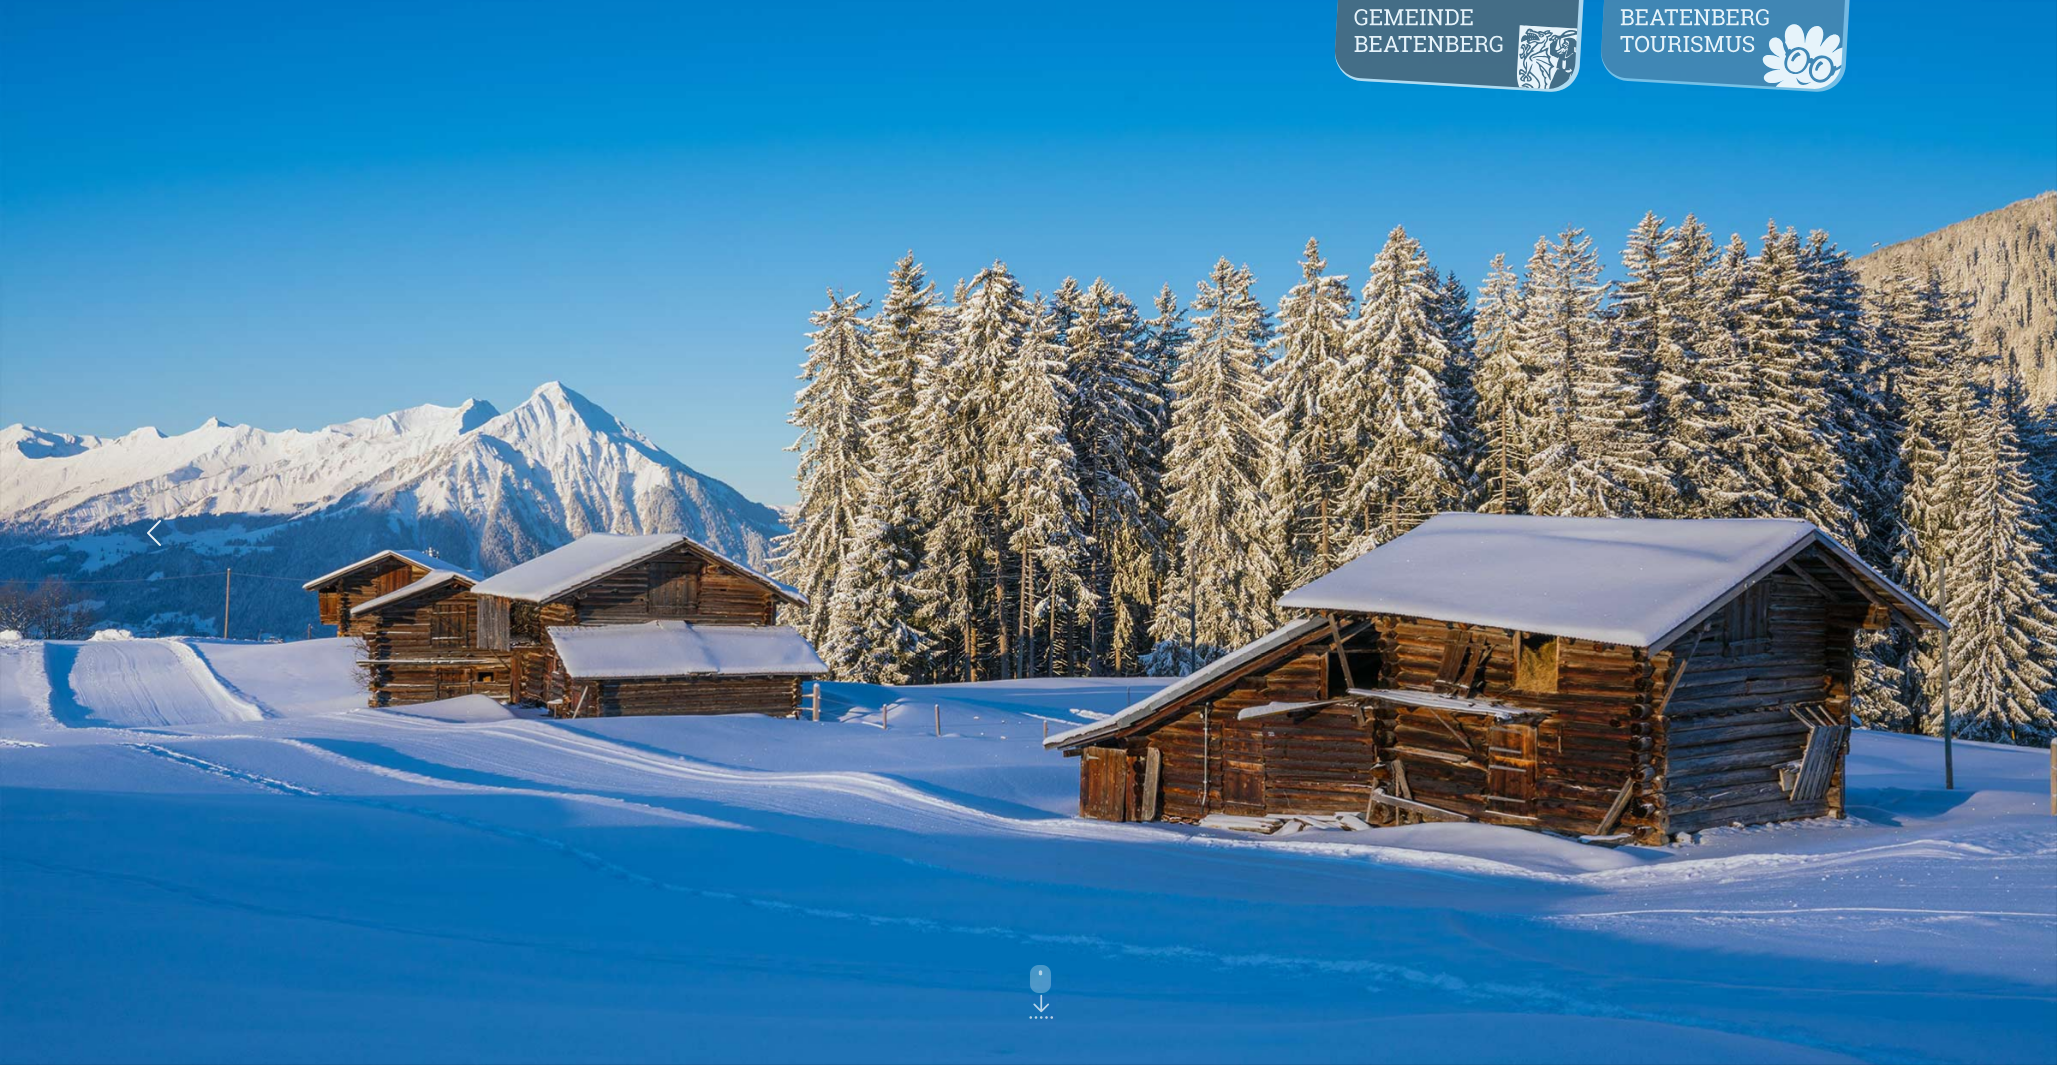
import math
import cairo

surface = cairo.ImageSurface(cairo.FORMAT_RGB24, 2057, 1065)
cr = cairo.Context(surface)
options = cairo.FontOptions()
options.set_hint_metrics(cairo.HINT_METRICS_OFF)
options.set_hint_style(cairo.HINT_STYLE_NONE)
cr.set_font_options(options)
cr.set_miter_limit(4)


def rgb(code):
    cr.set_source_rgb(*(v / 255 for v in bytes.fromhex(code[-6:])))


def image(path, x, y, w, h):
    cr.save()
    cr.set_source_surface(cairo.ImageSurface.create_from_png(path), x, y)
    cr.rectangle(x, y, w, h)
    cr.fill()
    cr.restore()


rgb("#123656")
cr.paint()
image("img/1.png", 0, 0, 2057, 1065)
image("img/2.png", 147, 520, 14, 26)
image("img/3.png", 1896, 520, 14, 26)
image("img/4.png", 1335, 0, 249, 92)
image("img/5.png", 1601, 0, 249, 92)
image("img/6.png", 1030, 965, 21, 28)
image("img/7.png", 1029, 994, 24, 25)
surface.write_to_png("page.png")
